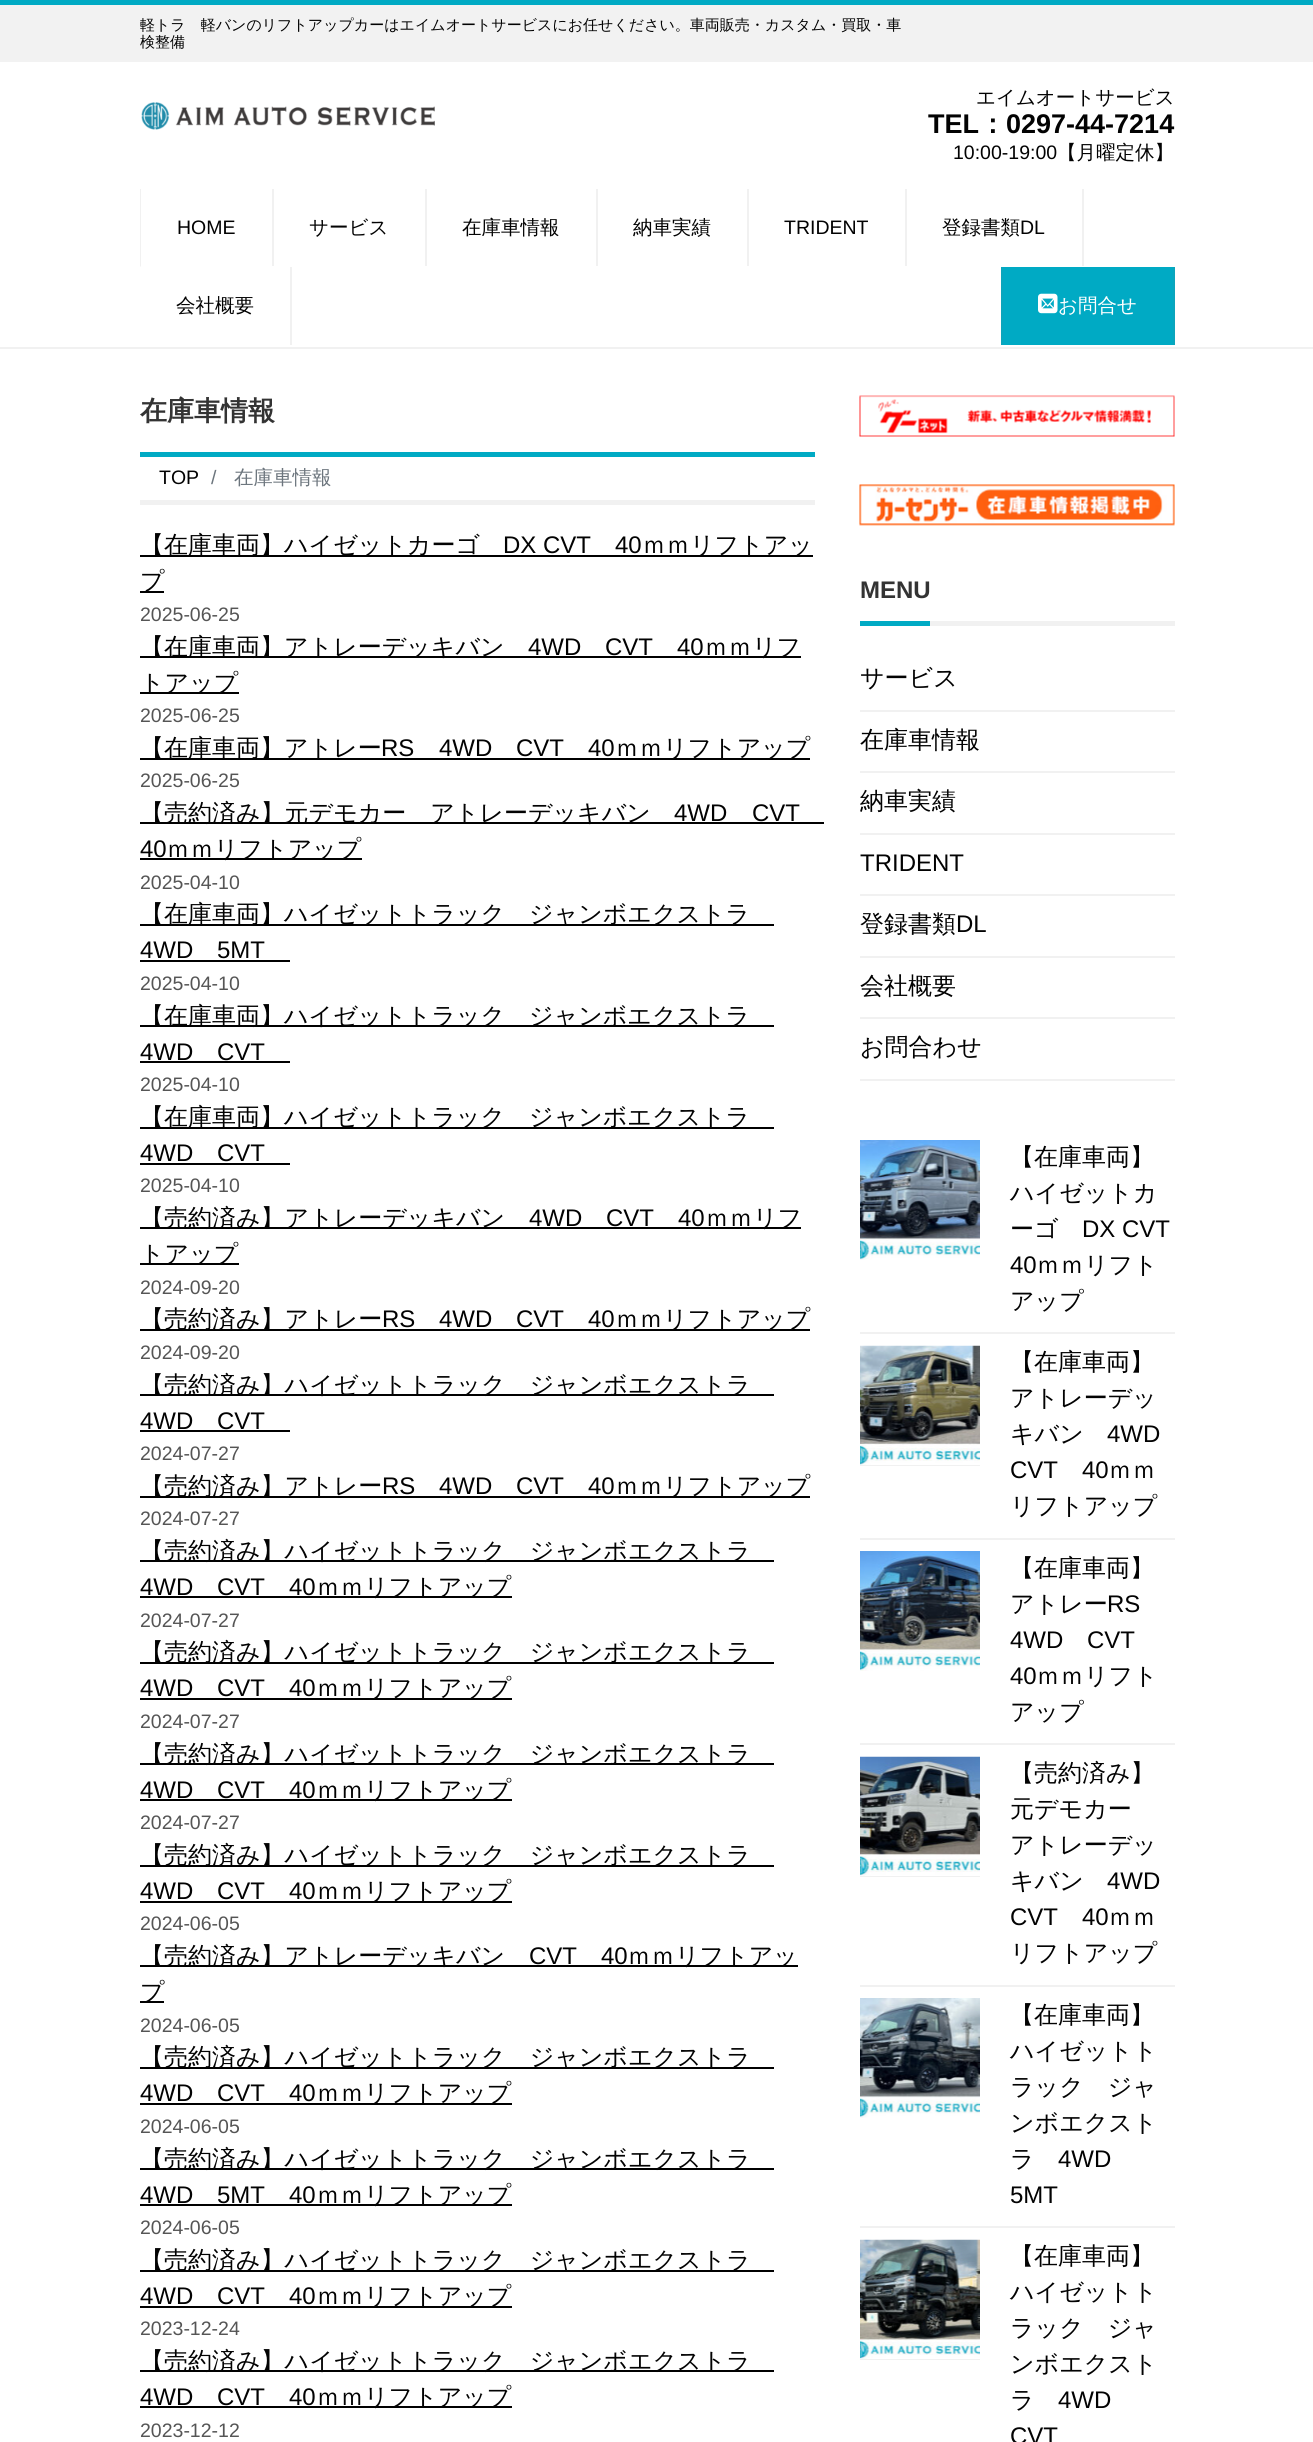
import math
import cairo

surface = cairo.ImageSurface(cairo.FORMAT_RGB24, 1313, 2442)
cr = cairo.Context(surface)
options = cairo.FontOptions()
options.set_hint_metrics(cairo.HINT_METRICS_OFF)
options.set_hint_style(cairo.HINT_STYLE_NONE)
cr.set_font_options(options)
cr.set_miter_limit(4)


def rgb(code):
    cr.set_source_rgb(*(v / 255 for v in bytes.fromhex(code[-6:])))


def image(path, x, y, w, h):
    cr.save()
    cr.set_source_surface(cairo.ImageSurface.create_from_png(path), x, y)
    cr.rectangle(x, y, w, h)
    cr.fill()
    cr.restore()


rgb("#ffffff")
cr.paint()
rgb("#00aac4")
cr.rectangle(0, 0, 1313, 5)
cr.fill()
rgb("#f2f2f2")
cr.rectangle(0, 5, 1313, 57)
cr.fill()
image("img/1.png", 141, 102, 294, 28)
rgb("#f1f1f1")
cr.rectangle(0, 347, 1313, 2)
cr.fill()
cr.new_path()
cr.move_to(140, 267)
cr.line_to(140, 189)
cr.line_to(141, 189)
cr.line_to(141, 266)
cr.close_path()
cr.fill()
for x, y, w, h, color in [
    (272, 189, 2, 77, "#f1f1f1"),
    (425, 189, 2, 77, "#f1f1f1"),
    (596, 189, 2, 77, "#f1f1f1"),
    (747, 189, 2, 77, "#f1f1f1"),
    (905, 189, 2, 77, "#f1f1f1"),
    (1082, 189, 2, 77, "#f1f1f1"),
    (290, 267, 2, 78, "#f1f1f1"),
    (1003, 267, 170, 78, "#00aac4"),
    (1173, 267, 2, 78, "#0ca5bc"),
    (1001, 267, 2, 78, "#0ca5bc"),
]:
    rgb(color)
    cr.rectangle(x, y, w, h)
    cr.fill()
image("img/2.png", 1038, 293, 20, 21)
for x, y, w, h, color in [
    (140, 452, 675, 5, "#00aac4"),
    (140, 500, 675, 5, "#f1f1f1"),
    (140, 555, 673, 2, "#000000"),
    (140, 591, 24, 2, "#000000"),
    (140, 656, 661, 2, "#000000"),
    (140, 692, 99, 2, "#000000"),
    (140, 758, 670, 2, "#000000"),
    (140, 822, 684, 2, "#000000"),
    (140, 858, 222, 2, "#000000"),
    (140, 924, 634, 2, "#000000"),
    (140, 960, 150, 2, "#000000"),
    (140, 1025, 634, 2, "#000000"),
    (140, 1061, 150, 2, "#000000"),
    (140, 1127, 634, 2, "#000000"),
    (140, 1163, 150, 2, "#000000"),
    (140, 1227, 661, 2, "#000000"),
    (140, 1263, 99, 2, "#000000"),
    (140, 1329, 670, 2, "#000000"),
    (140, 1394, 634, 2, "#000000"),
    (140, 1430, 150, 2, "#000000"),
    (140, 1496, 670, 2, "#000000"),
    (140, 1560, 634, 2, "#000000"),
    (140, 1596, 372, 2, "#000000"),
    (140, 1662, 634, 2, "#000000"),
    (140, 1698, 372, 2, "#000000"),
    (140, 1763, 634, 2, "#000000"),
    (140, 1799, 372, 2, "#000000"),
    (140, 1865, 634, 2, "#000000"),
    (140, 1901, 372, 2, "#000000"),
    (140, 1965, 658, 2, "#000000"),
    (140, 2001, 24, 2, "#000000"),
    (140, 2067, 634, 2, "#000000"),
    (140, 2103, 372, 2, "#000000"),
    (140, 2168, 634, 2, "#000000"),
    (140, 2204, 372, 2, "#000000"),
    (140, 2270, 634, 2, "#000000"),
    (140, 2306, 372, 2, "#000000"),
    (140, 2370, 634, 2, "#000000"),
    (140, 2406, 372, 2, "#000000"),
]:
    rgb(color)
    cr.rectangle(x, y, w, h)
    cr.fill()
image("img/3.png", 859, 395, 316, 42)
image("img/4.png", 859, 484, 316, 42)
for x, y, w, h, color in [
    (930, 621, 245, 5, "#f1f1f1"),
    (860, 621, 70, 5, "#00aac4"),
    (860, 710, 315, 2, "#f1f1f1"),
    (860, 771, 315, 2, "#f1f1f1"),
    (860, 833, 315, 2, "#f1f1f1"),
    (860, 894, 315, 2, "#f1f1f1"),
    (860, 956, 315, 2, "#f1f1f1"),
    (860, 1017, 315, 2, "#f1f1f1"),
    (860, 1079, 315, 2, "#f1f1f1"),
    (860, 1332, 315, 2, "#f1f1f1"),
]:
    rgb(color)
    cr.rectangle(x, y, w, h)
    cr.fill()
image("img/5.png", 860, 1140, 120, 120)
cr.rectangle(860, 1538, 315, 2)
cr.fill()
cr.rectangle(860, 1465, 120, 1)
cr.fill()
image("img/6.png", 860, 1345, 120, 120)
cr.rectangle(860, 1743, 315, 2)
cr.fill()
image("img/7.png", 860, 1551, 120, 120)
cr.rectangle(860, 1985, 315, 2)
cr.fill()
cr.rectangle(860, 1876, 120, 1)
cr.fill()
image("img/8.png", 860, 1756, 120, 120)
cr.rectangle(860, 2226, 315, 2)
cr.fill()
image("img/9.png", 860, 1998, 120, 120)
cr.rectangle(860, 2359, 120, 1)
cr.fill()
image("img/10.png", 860, 2239, 120, 120)
cr.select_font_face("WenQuanYi Zen Hei Medium")
cr.set_font_size(15)
rgb("#020202")
cr.move_to(140, 30)
cr.show_text("軽トラ　軽バンのリフトアップカーはエイムオートサービスにお任せください。車両販売・カスタム・買取・車")
cr.move_to(140, 47)
cr.show_text("検整備")
cr.set_font_size(19.5)
cr.move_to(976, 104)
cr.show_text("エイムオートサービス")
cr.select_font_face("Liberation Sans", cairo.FONT_SLANT_NORMAL, cairo.FONT_WEIGHT_BOLD)
cr.set_font_size(27)
cr.move_to(928, 133)
cr.show_text("TEL")
cr.select_font_face("WenQuanYi Zen Hei", cairo.FONT_SLANT_NORMAL, cairo.FONT_WEIGHT_BOLD)
cr.move_to(979, 133)
cr.show_text("：")
cr.select_font_face("Liberation Sans", cairo.FONT_SLANT_NORMAL, cairo.FONT_WEIGHT_BOLD)
cr.move_to(1006, 133)
cr.show_text("0297-44-7214")
cr.select_font_face("Liberation Sans")
cr.set_font_size(19.5)
cr.move_to(953, 159)
cr.show_text("10:00-19:00")
cr.select_font_face("WenQuanYi Zen Hei Medium")
cr.move_to(1057, 159)
cr.show_text("【月曜定休】")
cr.select_font_face("Liberation Sans")
cr.move_to(177, 234)
cr.show_text("HOME")
cr.select_font_face("WenQuanYi Zen Hei Medium")
for x, y, s in [
    (309, 234, "サービス"),
    (462, 234, "在庫車情報"),
    (633, 234, "納車実績"),
]:
    cr.move_to(x, y)
    cr.show_text(s)
cr.select_font_face("Liberation Sans")
cr.move_to(784, 234)
cr.show_text("TRIDENT")
cr.select_font_face("WenQuanYi Zen Hei Medium")
cr.move_to(942, 234)
cr.show_text("登録書類")
cr.select_font_face("Liberation Sans")
cr.move_to(1020, 234)
cr.show_text("DL")
cr.select_font_face("WenQuanYi Zen Hei Medium")
cr.move_to(176, 312)
cr.show_text("会社概要")
rgb("#ffffff")
cr.move_to(1058, 312)
cr.show_text("お問合せ")
cr.select_font_face("WenQuanYi Zen Hei", cairo.FONT_SLANT_NORMAL, cairo.FONT_WEIGHT_BOLD)
cr.set_font_size(27)
rgb("#333333")
cr.move_to(140, 420)
cr.show_text("在庫車情報")
cr.select_font_face("Liberation Sans")
cr.set_font_size(19.5)
rgb("#020202")
cr.move_to(159, 484)
cr.show_text("TOP")
rgb("#6c757d")
cr.move_to(211, 484)
cr.show_text("/")
cr.select_font_face("WenQuanYi Zen Hei Medium")
cr.move_to(234, 484)
cr.show_text("在庫車情報")
cr.set_font_size(24)
rgb("#020202")
cr.move_to(140, 553)
cr.show_text("【在庫車両】ハイゼットカーゴ")
cr.select_font_face("Liberation Sans")
cr.move_to(503, 553)
cr.show_text("DX CVT")
cr.move_to(615, 553)
cr.show_text("40")
cr.select_font_face("WenQuanYi Zen Hei Medium")
cr.move_to(642, 553)
cr.show_text("ｍｍリフトアッ")
cr.move_to(140, 589)
cr.show_text("プ")
cr.select_font_face("Liberation Sans")
cr.set_font_size(19.5)
rgb("#555555")
cr.move_to(140, 621)
cr.show_text("2025-06-25")
cr.select_font_face("WenQuanYi Zen Hei Medium")
cr.set_font_size(24)
rgb("#020202")
cr.move_to(140, 655)
cr.show_text("【在庫車両】アトレーデッキバン")
cr.select_font_face("Liberation Sans")
for x, y, s in [
    (528, 655, "4WD"),
    (605, 655, "CVT"),
    (677, 655, "40"),
]:
    cr.move_to(x, y)
    cr.show_text(s)
cr.select_font_face("WenQuanYi Zen Hei Medium")
cr.move_to(704, 655)
cr.show_text("ｍｍリフ")
cr.move_to(140, 691)
cr.show_text("トアップ")
cr.select_font_face("Liberation Sans")
cr.set_font_size(19.5)
rgb("#555555")
cr.move_to(140, 722)
cr.show_text("2025-06-25")
cr.select_font_face("WenQuanYi Zen Hei Medium")
cr.set_font_size(24)
rgb("#020202")
cr.move_to(140, 756)
cr.show_text("【在庫車両】アトレー")
cr.select_font_face("Liberation Sans")
for x, y, s in [
    (381, 756, "RS"),
    (439, 756, "4WD"),
    (516, 756, "CVT"),
    (588, 756, "40"),
]:
    cr.move_to(x, y)
    cr.show_text(s)
cr.select_font_face("WenQuanYi Zen Hei Medium")
cr.move_to(615, 756)
cr.show_text("ｍｍリフトアップ")
cr.select_font_face("Liberation Sans")
cr.set_font_size(19.5)
rgb("#555555")
cr.move_to(140, 787)
cr.show_text("2025-06-25")
cr.select_font_face("WenQuanYi Zen Hei Medium")
cr.set_font_size(24)
rgb("#020202")
cr.move_to(140, 821)
cr.show_text("【売約済み】元デモカー　アトレーデッキバン")
cr.select_font_face("Liberation Sans")
for x, y, s in [
    (674, 821, "4WD"),
    (752, 821, "CVT"),
    (140, 857, "40"),
]:
    cr.move_to(x, y)
    cr.show_text(s)
cr.select_font_face("WenQuanYi Zen Hei Medium")
cr.move_to(166, 857)
cr.show_text("ｍｍリフトアップ")
cr.select_font_face("Liberation Sans")
cr.set_font_size(19.5)
rgb("#555555")
cr.move_to(140, 889)
cr.show_text("2025-04-10")
cr.select_font_face("WenQuanYi Zen Hei Medium")
cr.set_font_size(24)
rgb("#020202")
cr.move_to(140, 922)
cr.show_text("【在庫車両】ハイゼットトラック　ジャンボエクストラ")
cr.select_font_face("Liberation Sans")
cr.move_to(140, 958)
cr.show_text("4WD")
cr.move_to(217, 958)
cr.show_text("5MT")
cr.set_font_size(19.5)
rgb("#555555")
cr.move_to(140, 990)
cr.show_text("2025-04-10")
cr.select_font_face("WenQuanYi Zen Hei Medium")
cr.set_font_size(24)
rgb("#020202")
cr.move_to(140, 1024)
cr.show_text("【在庫車両】ハイゼットトラック　ジャンボエクストラ")
cr.select_font_face("Liberation Sans")
cr.move_to(140, 1060)
cr.show_text("4WD")
cr.move_to(217, 1060)
cr.show_text("CVT")
cr.set_font_size(19.5)
rgb("#555555")
cr.move_to(140, 1091)
cr.show_text("2025-04-10")
cr.select_font_face("WenQuanYi Zen Hei Medium")
cr.set_font_size(24)
rgb("#020202")
cr.move_to(140, 1125)
cr.show_text("【在庫車両】ハイゼットトラック　ジャンボエクストラ")
cr.select_font_face("Liberation Sans")
cr.move_to(140, 1161)
cr.show_text("4WD")
cr.move_to(217, 1161)
cr.show_text("CVT")
cr.set_font_size(19.5)
rgb("#555555")
cr.move_to(140, 1192)
cr.show_text("2025-04-10")
cr.select_font_face("WenQuanYi Zen Hei Medium")
cr.set_font_size(24)
rgb("#020202")
cr.move_to(140, 1226)
cr.show_text("【売約済み】アトレーデッキバン")
cr.select_font_face("Liberation Sans")
for x, y, s in [
    (529, 1226, "4WD"),
    (606, 1226, "CVT"),
    (678, 1226, "40"),
]:
    cr.move_to(x, y)
    cr.show_text(s)
cr.select_font_face("WenQuanYi Zen Hei Medium")
cr.move_to(705, 1226)
cr.show_text("ｍｍリフ")
cr.move_to(140, 1262)
cr.show_text("トアップ")
cr.select_font_face("Liberation Sans")
cr.set_font_size(19.5)
rgb("#555555")
cr.move_to(140, 1294)
cr.show_text("2024-09-20")
cr.select_font_face("WenQuanYi Zen Hei Medium")
cr.set_font_size(24)
rgb("#020202")
cr.move_to(140, 1327)
cr.show_text("【売約済み】アトレー")
cr.select_font_face("Liberation Sans")
for x, y, s in [
    (382, 1327, "RS"),
    (439, 1327, "4WD"),
    (516, 1327, "CVT"),
    (588, 1327, "40"),
]:
    cr.move_to(x, y)
    cr.show_text(s)
cr.select_font_face("WenQuanYi Zen Hei Medium")
cr.move_to(615, 1327)
cr.show_text("ｍｍリフトアップ")
cr.select_font_face("Liberation Sans")
cr.set_font_size(19.5)
rgb("#555555")
cr.move_to(140, 1359)
cr.show_text("2024-09-20")
cr.select_font_face("WenQuanYi Zen Hei Medium")
cr.set_font_size(24)
rgb("#020202")
cr.move_to(140, 1393)
cr.show_text("【売約済み】ハイゼットトラック　ジャンボエクストラ")
cr.select_font_face("Liberation Sans")
cr.move_to(140, 1429)
cr.show_text("4WD")
cr.move_to(217, 1429)
cr.show_text("CVT")
cr.set_font_size(19.5)
rgb("#555555")
cr.move_to(140, 1460)
cr.show_text("2024-07-27")
cr.select_font_face("WenQuanYi Zen Hei Medium")
cr.set_font_size(24)
rgb("#020202")
cr.move_to(140, 1494)
cr.show_text("【売約済み】アトレー")
cr.select_font_face("Liberation Sans")
for x, y, s in [
    (382, 1494, "RS"),
    (439, 1494, "4WD"),
    (516, 1494, "CVT"),
    (588, 1494, "40"),
]:
    cr.move_to(x, y)
    cr.show_text(s)
cr.select_font_face("WenQuanYi Zen Hei Medium")
cr.move_to(615, 1494)
cr.show_text("ｍｍリフトアップ")
cr.select_font_face("Liberation Sans")
cr.set_font_size(19.5)
rgb("#555555")
cr.move_to(140, 1525)
cr.show_text("2024-07-27")
cr.select_font_face("WenQuanYi Zen Hei Medium")
cr.set_font_size(24)
rgb("#020202")
cr.move_to(140, 1559)
cr.show_text("【売約済み】ハイゼットトラック　ジャンボエクストラ")
cr.select_font_face("Liberation Sans")
for x, y, s in [
    (140, 1595, "4WD"),
    (217, 1595, "CVT"),
    (289, 1595, "40"),
]:
    cr.move_to(x, y)
    cr.show_text(s)
cr.select_font_face("WenQuanYi Zen Hei Medium")
cr.move_to(316, 1595)
cr.show_text("ｍｍリフトアップ")
cr.select_font_face("Liberation Sans")
cr.set_font_size(19.5)
rgb("#555555")
cr.move_to(140, 1627)
cr.show_text("2024-07-27")
cr.select_font_face("WenQuanYi Zen Hei Medium")
cr.set_font_size(24)
rgb("#020202")
cr.move_to(140, 1660)
cr.show_text("【売約済み】ハイゼットトラック　ジャンボエクストラ")
cr.select_font_face("Liberation Sans")
for x, y, s in [
    (140, 1696, "4WD"),
    (217, 1696, "CVT"),
    (289, 1696, "40"),
]:
    cr.move_to(x, y)
    cr.show_text(s)
cr.select_font_face("WenQuanYi Zen Hei Medium")
cr.move_to(316, 1696)
cr.show_text("ｍｍリフトアップ")
cr.select_font_face("Liberation Sans")
cr.set_font_size(19.5)
rgb("#555555")
cr.move_to(140, 1728)
cr.show_text("2024-07-27")
cr.select_font_face("WenQuanYi Zen Hei Medium")
cr.set_font_size(24)
rgb("#020202")
cr.move_to(140, 1762)
cr.show_text("【売約済み】ハイゼットトラック　ジャンボエクストラ")
cr.select_font_face("Liberation Sans")
for x, y, s in [
    (140, 1798, "4WD"),
    (217, 1798, "CVT"),
    (289, 1798, "40"),
]:
    cr.move_to(x, y)
    cr.show_text(s)
cr.select_font_face("WenQuanYi Zen Hei Medium")
cr.move_to(316, 1798)
cr.show_text("ｍｍリフトアップ")
cr.select_font_face("Liberation Sans")
cr.set_font_size(19.5)
rgb("#555555")
cr.move_to(140, 1829)
cr.show_text("2024-07-27")
cr.select_font_face("WenQuanYi Zen Hei Medium")
cr.set_font_size(24)
rgb("#020202")
cr.move_to(140, 1863)
cr.show_text("【売約済み】ハイゼットトラック　ジャンボエクストラ")
cr.select_font_face("Liberation Sans")
for x, y, s in [
    (140, 1899, "4WD"),
    (217, 1899, "CVT"),
    (289, 1899, "40"),
]:
    cr.move_to(x, y)
    cr.show_text(s)
cr.select_font_face("WenQuanYi Zen Hei Medium")
cr.move_to(316, 1899)
cr.show_text("ｍｍリフトアップ")
cr.select_font_face("Liberation Sans")
cr.set_font_size(19.5)
rgb("#555555")
cr.move_to(140, 1930)
cr.show_text("2024-06-05")
cr.select_font_face("WenQuanYi Zen Hei Medium")
cr.set_font_size(24)
rgb("#020202")
cr.move_to(140, 1964)
cr.show_text("【売約済み】アトレーデッキバン")
cr.select_font_face("Liberation Sans")
cr.move_to(529, 1964)
cr.show_text("CVT")
cr.move_to(601, 1964)
cr.show_text("40")
cr.select_font_face("WenQuanYi Zen Hei Medium")
cr.move_to(627, 1964)
cr.show_text("ｍｍリフトアッ")
cr.move_to(140, 2000)
cr.show_text("プ")
cr.select_font_face("Liberation Sans")
cr.set_font_size(19.5)
rgb("#555555")
cr.move_to(140, 2032)
cr.show_text("2024-06-05")
cr.select_font_face("WenQuanYi Zen Hei Medium")
cr.set_font_size(24)
rgb("#020202")
cr.move_to(140, 2065)
cr.show_text("【売約済み】ハイゼットトラック　ジャンボエクストラ")
cr.select_font_face("Liberation Sans")
for x, y, s in [
    (140, 2101, "4WD"),
    (217, 2101, "CVT"),
    (289, 2101, "40"),
]:
    cr.move_to(x, y)
    cr.show_text(s)
cr.select_font_face("WenQuanYi Zen Hei Medium")
cr.move_to(316, 2101)
cr.show_text("ｍｍリフトアップ")
cr.select_font_face("Liberation Sans")
cr.set_font_size(19.5)
rgb("#555555")
cr.move_to(140, 2133)
cr.show_text("2024-06-05")
cr.select_font_face("WenQuanYi Zen Hei Medium")
cr.set_font_size(24)
rgb("#020202")
cr.move_to(140, 2167)
cr.show_text("【売約済み】ハイゼットトラック　ジャンボエクストラ")
cr.select_font_face("Liberation Sans")
for x, y, s in [
    (140, 2203, "4WD"),
    (217, 2203, "5MT"),
    (289, 2203, "40"),
]:
    cr.move_to(x, y)
    cr.show_text(s)
cr.select_font_face("WenQuanYi Zen Hei Medium")
cr.move_to(316, 2203)
cr.show_text("ｍｍリフトアップ")
cr.select_font_face("Liberation Sans")
cr.set_font_size(19.5)
rgb("#555555")
cr.move_to(140, 2234)
cr.show_text("2024-06-05")
cr.select_font_face("WenQuanYi Zen Hei Medium")
cr.set_font_size(24)
rgb("#020202")
cr.move_to(140, 2268)
cr.show_text("【売約済み】ハイゼットトラック　ジャンボエクストラ")
cr.select_font_face("Liberation Sans")
for x, y, s in [
    (140, 2304, "4WD"),
    (217, 2304, "CVT"),
    (289, 2304, "40"),
]:
    cr.move_to(x, y)
    cr.show_text(s)
cr.select_font_face("WenQuanYi Zen Hei Medium")
cr.move_to(316, 2304)
cr.show_text("ｍｍリフトアップ")
cr.select_font_face("Liberation Sans")
cr.set_font_size(19.5)
rgb("#555555")
cr.move_to(140, 2335)
cr.show_text("2023-12-24")
cr.select_font_face("WenQuanYi Zen Hei Medium")
cr.set_font_size(24)
rgb("#020202")
cr.move_to(140, 2369)
cr.show_text("【売約済み】ハイゼットトラック　ジャンボエクストラ")
cr.select_font_face("Liberation Sans")
for x, y, s in [
    (140, 2405, "4WD"),
    (217, 2405, "CVT"),
    (289, 2405, "40"),
]:
    cr.move_to(x, y)
    cr.show_text(s)
cr.select_font_face("WenQuanYi Zen Hei Medium")
cr.move_to(316, 2405)
cr.show_text("ｍｍリフトアップ")
cr.select_font_face("Liberation Sans")
cr.set_font_size(19.5)
rgb("#555555")
cr.move_to(140, 2437)
cr.show_text("2023-12-12")
cr.select_font_face("Liberation Sans", cairo.FONT_SLANT_NORMAL, cairo.FONT_WEIGHT_BOLD)
cr.set_font_size(24)
rgb("#333333")
cr.move_to(860, 598)
cr.show_text("MENU")
cr.select_font_face("WenQuanYi Zen Hei Medium")
rgb("#020202")
for x, y, s in [
    (860, 686, "サービス"),
    (860, 748, "在庫車情報"),
    (860, 809, "納車実績"),
]:
    cr.move_to(x, y)
    cr.show_text(s)
cr.select_font_face("Liberation Sans")
cr.move_to(860, 871)
cr.show_text("TRIDENT")
cr.select_font_face("WenQuanYi Zen Hei Medium")
cr.move_to(860, 932)
cr.show_text("登録書類")
cr.select_font_face("Liberation Sans")
cr.move_to(956, 932)
cr.show_text("DL")
cr.select_font_face("WenQuanYi Zen Hei Medium")
for x, y, s in [
    (860, 994, "会社概要"),
    (860, 1055, "お問合わせ"),
    (1010, 1165, "【在庫車両】"),
    (1010, 1201, "ハイゼットカ"),
    (1010, 1237, "ーゴ"),
]:
    cr.move_to(x, y)
    cr.show_text(s)
cr.select_font_face("Liberation Sans")
cr.move_to(1082, 1237)
cr.show_text("DX CVT")
cr.move_to(1010, 1273)
cr.show_text("40")
cr.select_font_face("WenQuanYi Zen Hei Medium")
for x, y, s in [
    (1036, 1273, "ｍｍリフト"),
    (1010, 1309, "アップ"),
    (1010, 1370, "【在庫車両】"),
    (1010, 1406, "アトレーデッ"),
    (1010, 1442, "キバン"),
]:
    cr.move_to(x, y)
    cr.show_text(s)
cr.select_font_face("Liberation Sans")
for x, y, s in [
    (1107, 1442, "4WD"),
    (1010, 1478, "CVT"),
    (1082, 1478, "40"),
]:
    cr.move_to(x, y)
    cr.show_text(s)
cr.select_font_face("WenQuanYi Zen Hei Medium")
for x, y, s in [
    (1108, 1478, "ｍｍ"),
    (1010, 1514, "リフトアップ"),
    (1010, 1576, "【在庫車両】"),
    (1010, 1612, "アトレー"),
]:
    cr.move_to(x, y)
    cr.show_text(s)
cr.select_font_face("Liberation Sans")
for x, y, s in [
    (1107, 1612, "RS"),
    (1010, 1648, "4WD"),
    (1087, 1648, "CVT"),
    (1010, 1684, "40"),
]:
    cr.move_to(x, y)
    cr.show_text(s)
cr.select_font_face("WenQuanYi Zen Hei Medium")
for x, y, s in [
    (1036, 1684, "ｍｍリフト"),
    (1010, 1720, "アップ"),
    (1010, 1781, "【売約済み】"),
    (1010, 1817, "元デモカー"),
    (1010, 1853, "アトレーデッ"),
    (1010, 1889, "キバン"),
]:
    cr.move_to(x, y)
    cr.show_text(s)
cr.select_font_face("Liberation Sans")
for x, y, s in [
    (1107, 1889, "4WD"),
    (1010, 1925, "CVT"),
    (1082, 1925, "40"),
]:
    cr.move_to(x, y)
    cr.show_text(s)
cr.select_font_face("WenQuanYi Zen Hei Medium")
for x, y, s in [
    (1108, 1925, "ｍｍ"),
    (1010, 1961, "リフトアップ"),
    (1010, 2023, "【在庫車両】"),
    (1010, 2059, "ハイゼットト"),
    (1010, 2095, "ラック　ジャ"),
    (1010, 2131, "ンボエクスト"),
    (1010, 2167, "ラ"),
]:
    cr.move_to(x, y)
    cr.show_text(s)
cr.select_font_face("Liberation Sans")
cr.move_to(1058, 2167)
cr.show_text("4WD")
cr.move_to(1010, 2203)
cr.show_text("5MT")
cr.select_font_face("WenQuanYi Zen Hei Medium")
for x, y, s in [
    (1010, 2264, "【在庫車両】"),
    (1010, 2300, "ハイゼットト"),
    (1010, 2336, "ラック　ジャ"),
    (1010, 2372, "ンボエクスト"),
    (1010, 2408, "ラ"),
]:
    cr.move_to(x, y)
    cr.show_text(s)
cr.select_font_face("Liberation Sans")
cr.move_to(1058, 2408)
cr.show_text("4WD")
cr.move_to(1010, 2444)
cr.show_text("CVT")
surface.write_to_png("page.png")
